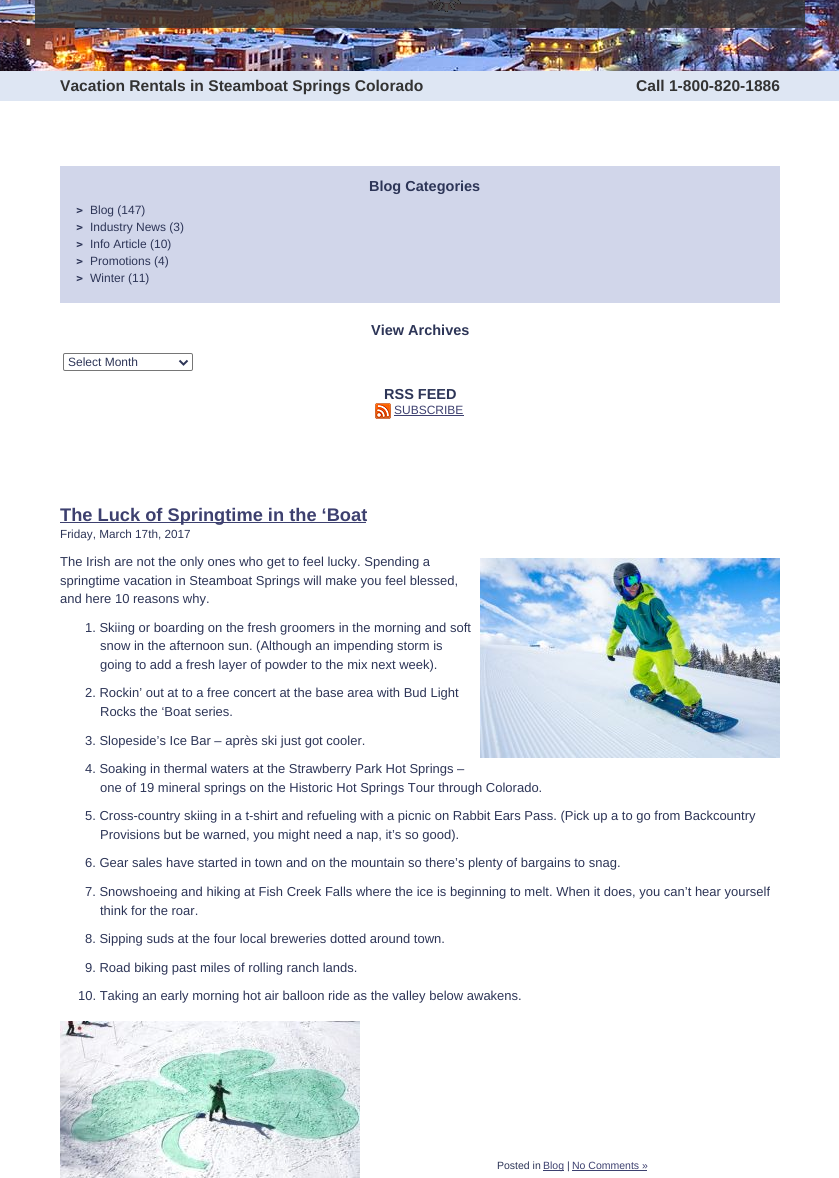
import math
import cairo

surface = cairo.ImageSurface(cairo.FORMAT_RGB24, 839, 1178)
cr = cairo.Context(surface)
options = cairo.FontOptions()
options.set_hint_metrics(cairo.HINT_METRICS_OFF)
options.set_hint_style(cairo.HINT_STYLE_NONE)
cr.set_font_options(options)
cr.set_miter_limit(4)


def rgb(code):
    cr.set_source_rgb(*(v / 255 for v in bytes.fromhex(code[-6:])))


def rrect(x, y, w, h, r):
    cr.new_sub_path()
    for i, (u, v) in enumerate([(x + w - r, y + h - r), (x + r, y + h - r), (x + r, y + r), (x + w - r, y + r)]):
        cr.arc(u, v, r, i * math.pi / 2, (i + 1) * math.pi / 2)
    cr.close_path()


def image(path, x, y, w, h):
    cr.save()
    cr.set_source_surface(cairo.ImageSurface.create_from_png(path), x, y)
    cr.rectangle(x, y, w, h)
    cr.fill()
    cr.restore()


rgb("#ffffff")
cr.paint()
image("img/1.png", 0, 0, 839, 71)
cr.set_source_rgba(0.2, 0.2, 0.2, 0.8)
cr.rectangle(35, 0, 770, 28)
cr.fill()
image("img/2.png", 432, 0, 29, 12)
rgb("#dee6f3")
cr.rectangle(0, 71, 839, 30)
cr.fill()
rgb("#d1d6ea")
cr.rectangle(60, 166, 720, 137)
cr.fill()
image("img/3.png", 76, 207, 7, 7)
image("img/3.png", 76, 224, 7, 7)
image("img/3.png", 76, 241, 7, 7)
image("img/3.png", 76, 258, 7, 7)
image("img/3.png", 76, 275, 7, 7)
rrect(63.5, 353.5, 129, 17, 1.5)
rgb("#767676")
cr.set_line_width(1)
cr.stroke()
cr.new_path()
cr.move_to(179.5, 360.5)
cr.line_to(183.5, 364.5)
cr.line_to(187.5, 360.5)
rgb("#2d3557")
cr.set_line_width(2)
cr.stroke()
image("img/4.png", 375, 403, 16, 16)
rgb("#3d406f")
cr.rectangle(394, 415, 70, 1)
cr.fill()
cr.rectangle(60, 522, 306, 1)
cr.fill()
image("img/5.png", 480, 558, 300, 200)
image("img/6.png", 60, 1021, 300, 157)
cr.rectangle(543, 1170, 21, 1)
cr.fill()
cr.rectangle(572, 1170, 75, 1)
cr.fill()
cr.select_font_face("Liberation Sans", cairo.FONT_SLANT_NORMAL, cairo.FONT_WEIGHT_BOLD)
cr.set_font_size(15.6)
rgb("#333333")
cr.move_to(60, 91)
cr.show_text("Vacation Rentals in Steamboat Springs Colorado")
cr.move_to(636, 91)
cr.show_text("Call 1-800-820-1886")
cr.set_font_size(14.5)
rgb("#2d3557")
cr.move_to(369, 191)
cr.show_text("Blog Categories")
cr.select_font_face("Liberation Sans")
cr.set_font_size(12)
for x, y, s in [
    (90, 214, "Blog (147)"),
    (90, 231, "Industry News (3)"),
    (90, 248, "Info Article (10)"),
    (90, 265, "Promotions (4)"),
    (90, 282, "Winter (11)"),
]:
    cr.move_to(x, y)
    cr.show_text(s)
cr.select_font_face("Liberation Sans", cairo.FONT_SLANT_NORMAL, cairo.FONT_WEIGHT_BOLD)
cr.set_font_size(14.5)
cr.move_to(371, 335)
cr.show_text("View Archives")
cr.select_font_face("Liberation Sans")
cr.set_font_size(12)
cr.move_to(68, 366)
cr.show_text("Select Month")
cr.select_font_face("Liberation Sans", cairo.FONT_SLANT_NORMAL, cairo.FONT_WEIGHT_BOLD)
cr.set_font_size(14.5)
cr.move_to(384, 399)
cr.show_text("RSS FEED")
cr.select_font_face("Liberation Sans")
cr.set_font_size(12)
rgb("#3d406f")
cr.move_to(394, 414)
cr.show_text("SUBSCRIBE")
cr.select_font_face("Liberation Sans", cairo.FONT_SLANT_NORMAL, cairo.FONT_WEIGHT_BOLD)
cr.set_font_size(18.25)
cr.move_to(60, 521)
cr.show_text("The Luck of Springtime in the ‘Boat")
cr.select_font_face("Liberation Sans")
cr.set_font_size(11.75)
rgb("#2d3557")
cr.move_to(60, 538)
cr.show_text("Friday, March 17th, 2017")
cr.set_font_size(13)
for x, y, s in [
    (60, 566, "The Irish are not the only ones who get to feel lucky. Spending a"),
    (60, 585, "springtime vacation in Steamboat Springs will make you feel blessed,"),
    (60, 603, "and here 10 reasons why."),
    (85, 632, "1. Skiing or boarding on the fresh groomers in the morning and soft"),
    (100, 650, "snow in the afternoon sun. (Although an impending storm is"),
    (100, 669, "going to add a fresh layer of powder to the mix next week)."),
    (85, 697, "2. Rockin’ out at to a free concert at the base area with Bud Light"),
    (100, 716, "Rocks the ‘Boat series."),
    (85, 745, "3. Slopeside’s Ice Bar – après ski just got cooler."),
    (85, 773, "4. Soaking in thermal waters at the Strawberry Park Hot Springs –"),
    (100, 792, "one of 19 mineral springs on the Historic Hot Springs Tour through Colorado."),
    (85, 820, "5. Cross-country skiing in a t-shirt and refueling with a picnic on Rabbit Ears Pass. (Pick up a to go from Backcountry"),
    (100, 839, "Provisions but be warned, you might need a nap, it’s so good)."),
    (85, 867, "6. Gear sales have started in town and on the mountain so there’s plenty of bargains to snag."),
    (85, 896, "7. Snowshoeing and hiking at Fish Creek Falls where the ice is beginning to melt. When it does, you can’t hear yourself"),
    (100, 915, "think for the roar."),
    (85, 943, "8. Sipping suds at the four local breweries dotted around town."),
    (85, 972, "9. Road biking past miles of rolling ranch lands."),
    (78, 1000, "10. Taking an early morning hot air balloon ride as the valley below awakens."),
]:
    cr.move_to(x, y)
    cr.show_text(s)
cr.set_font_size(10.5)
cr.move_to(497, 1169)
cr.show_text("Posted in")
rgb("#3d406f")
cr.move_to(543, 1169)
cr.show_text("Blog")
rgb("#2d3557")
cr.move_to(567, 1169)
cr.show_text("|")
rgb("#3d406f")
cr.move_to(572, 1169)
cr.show_text("No Comments »")
surface.write_to_png("page.png")
